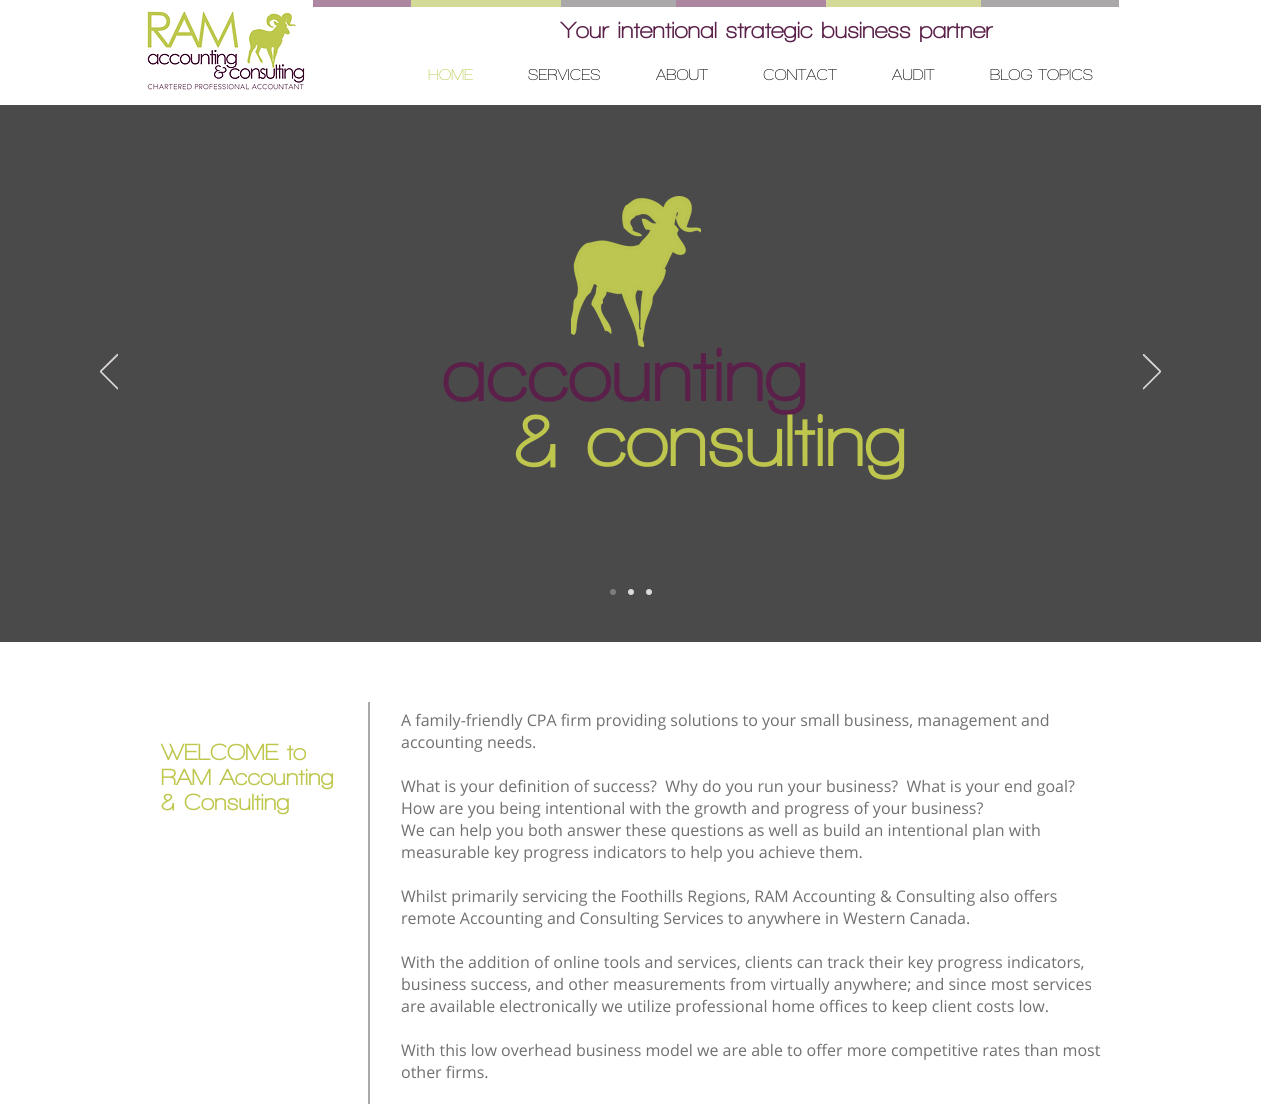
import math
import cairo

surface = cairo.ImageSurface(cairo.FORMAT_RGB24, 1261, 1104)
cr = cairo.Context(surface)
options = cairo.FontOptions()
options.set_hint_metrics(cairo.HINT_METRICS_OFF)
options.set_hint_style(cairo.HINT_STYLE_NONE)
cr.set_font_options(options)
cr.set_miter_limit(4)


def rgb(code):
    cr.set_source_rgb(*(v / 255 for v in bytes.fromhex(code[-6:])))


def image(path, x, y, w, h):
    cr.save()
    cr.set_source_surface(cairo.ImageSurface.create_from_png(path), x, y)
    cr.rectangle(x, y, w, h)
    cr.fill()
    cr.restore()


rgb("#ffffff")
cr.paint()
image("img/1.png", 141, 0, 172, 90)
for x, y, w, h, color in [
    (313, 0, 98, 7, "#ad87a2"),
    (411, 0, 150, 7, "#d5d997"),
    (561, 0, 115, 7, "#aaa8a8"),
    (676, 0, 150, 7, "#ad87a2"),
    (826, 0, 155, 7, "#d5d997"),
    (981, 0, 138, 7, "#aaa8a8"),
    (0, 105, 1261, 537, "#4a4a4a"),
]:
    rgb(color)
    cr.rectangle(x, y, w, h)
    cr.fill()
cr.save()
cr.rectangle(100, 354, 18, 36)
cr.clip()
cr.new_path()
cr.move_to(117.5, 389)
cr.line_to(100, 371.5)
cr.line_to(117.5, 354)
cr.line_to(118, 355)
cr.line_to(101, 371.5)
cr.line_to(118, 388.5)
cr.close_path()
rgb("#e0dbdb")
cr.set_line_width(0.9)
cr.stroke()
cr.restore()
image("img/2.png", 571, 196, 130, 151)
cr.save()
cr.rectangle(1143, 354, 18, 36)
cr.clip()
cr.new_path()
cr.move_to(1143.5, 389)
cr.line_to(1161, 371.5)
cr.line_to(1143.5, 354)
cr.line_to(1143, 355)
cr.line_to(1160, 371.5)
cr.line_to(1143, 388.5)
cr.close_path()
rgb("#e0dbdb")
cr.set_line_width(0.9)
cr.stroke()
cr.restore()
rgb("#7d7d7d")
cr.arc(613, 592, 3, 0, 2 * math.pi)
cr.fill()
rgb("#e0dbdb")
cr.arc(631, 592, 3, 0, 2 * math.pi)
cr.fill()
cr.arc(649, 592, 3, 0, 2 * math.pi)
cr.fill()
rgb("#aaa8a8")
cr.rectangle(368, 702, 2, 402)
cr.fill()
cr.select_font_face("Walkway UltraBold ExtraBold")
cr.set_font_size(24)
rgb("#5a2049")
cr.move_to(561, 38)
cr.show_text("Your intentional strategic business partner")
cr.select_font_face("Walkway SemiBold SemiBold")
cr.set_font_size(16)
rgb("#bec64d")
cr.move_to(428, 80)
cr.show_text("HOME")
rgb("#000000")
for x, y, s in [
    (528, 80, "SERVICES"),
    (656, 80, "ABOUT"),
    (763, 80, "CONTACT"),
    (892, 80, "AUDIT"),
    (990, 80, "BLOG TOPICS"),
]:
    cr.move_to(x, y)
    cr.show_text(s)
cr.select_font_face("Walkway UltraBold ExtraBold")
cr.set_font_size(78)
rgb("#5a2049")
cr.move_to(443, 401)
cr.show_text("accounting")
cr.set_font_size(76)
rgb("#bec64d")
cr.move_to(514, 466)
cr.show_text("& consulting")
cr.set_font_size(24)
for x, y, s in [
    (161, 760, "WELCOME to"),
    (161, 785, "RAM Accounting"),
    (161, 810, "& Consulting"),
]:
    cr.move_to(x, y)
    cr.show_text(s)
cr.select_font_face("Open Sans")
cr.set_font_size(16)
rgb("#717070")
for x, y, s in [
    (401, 726, "A family-friendly CPA firm providing solutions to your small business, management and"),
    (401, 748, "accounting needs."),
    (401, 792, "What is your definition of success?  Why do you run your business?  What is your end goal?"),
    (401, 814, "How are you being intentional with the growth and progress of your business?"),
    (401, 836, "We can help you both answer these questions as well as build an intentional plan with"),
    (401, 858, "measurable key progress indicators to help you achieve them."),
    (401, 902, "Whilst primarily servicing the Foothills Regions, RAM Accounting & Consulting also offers"),
    (401, 924, "remote Accounting and Consulting Services to anywhere in Western Canada."),
    (401, 968, "With the addition of online tools and services, clients can track their key progress indicators,"),
    (401, 990, "business success, and other measurements from virtually anywhere; and since most services"),
    (401, 1012, "are available electronically we utilize professional home offices to keep client costs low."),
    (401, 1056, "With this low overhead business model we are able to offer more competitive rates than most"),
    (401, 1078, "other firms."),
]:
    cr.move_to(x, y)
    cr.show_text(s)
surface.write_to_png("page.png")
